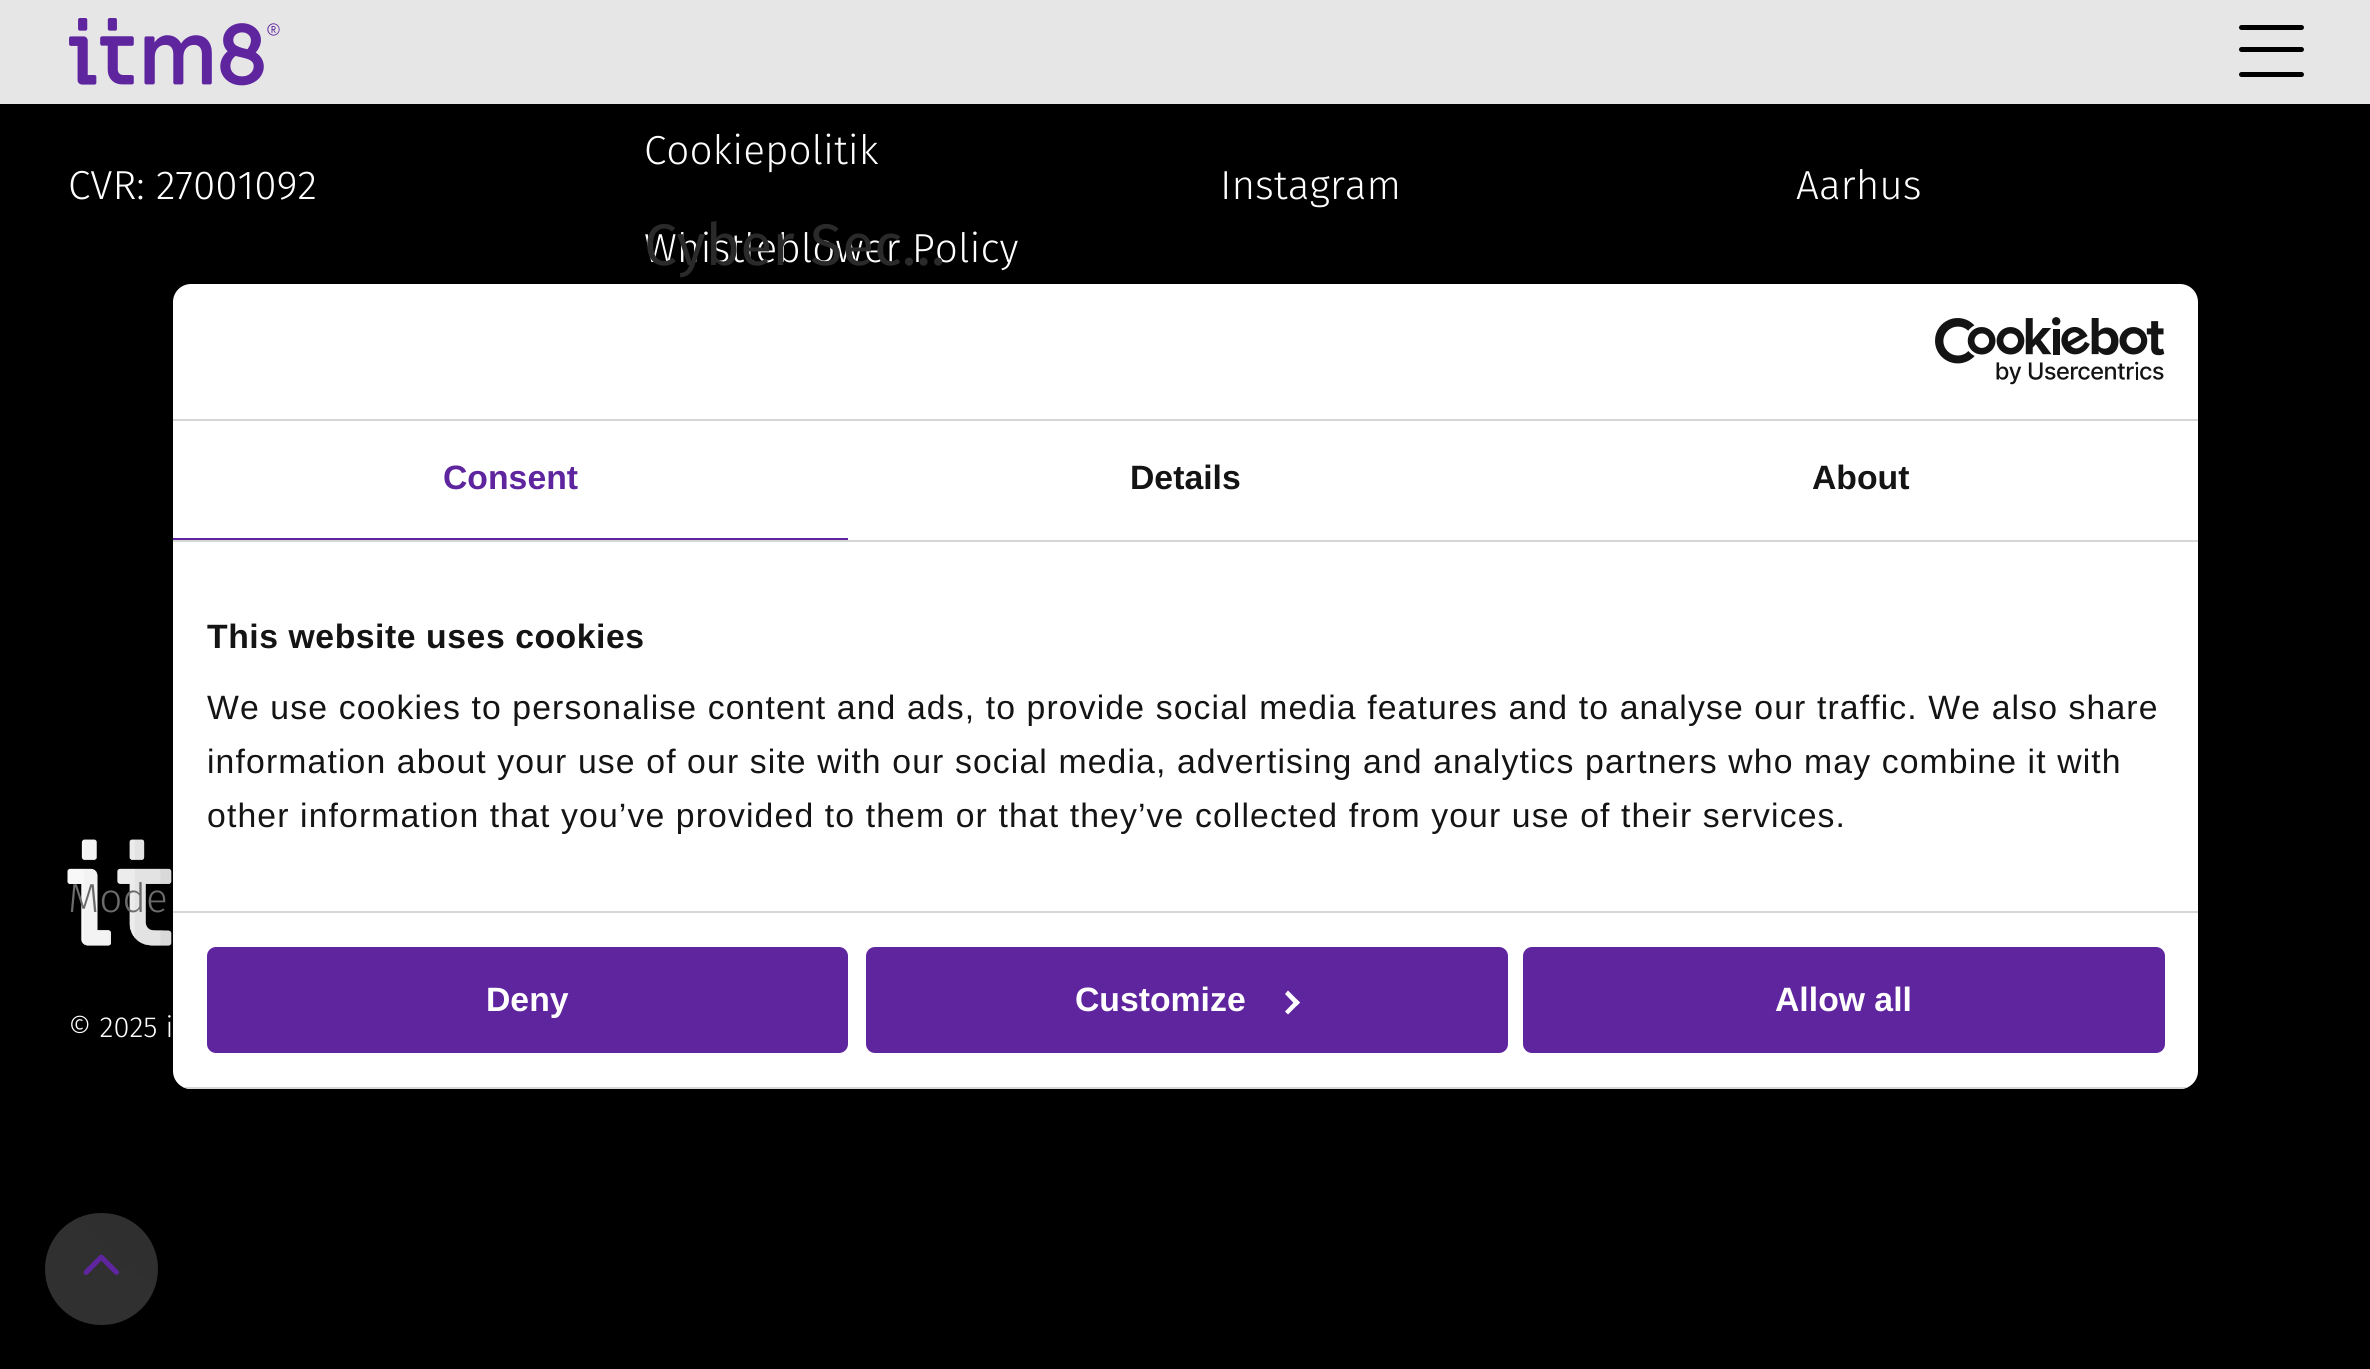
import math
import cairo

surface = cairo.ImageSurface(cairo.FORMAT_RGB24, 2370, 1369)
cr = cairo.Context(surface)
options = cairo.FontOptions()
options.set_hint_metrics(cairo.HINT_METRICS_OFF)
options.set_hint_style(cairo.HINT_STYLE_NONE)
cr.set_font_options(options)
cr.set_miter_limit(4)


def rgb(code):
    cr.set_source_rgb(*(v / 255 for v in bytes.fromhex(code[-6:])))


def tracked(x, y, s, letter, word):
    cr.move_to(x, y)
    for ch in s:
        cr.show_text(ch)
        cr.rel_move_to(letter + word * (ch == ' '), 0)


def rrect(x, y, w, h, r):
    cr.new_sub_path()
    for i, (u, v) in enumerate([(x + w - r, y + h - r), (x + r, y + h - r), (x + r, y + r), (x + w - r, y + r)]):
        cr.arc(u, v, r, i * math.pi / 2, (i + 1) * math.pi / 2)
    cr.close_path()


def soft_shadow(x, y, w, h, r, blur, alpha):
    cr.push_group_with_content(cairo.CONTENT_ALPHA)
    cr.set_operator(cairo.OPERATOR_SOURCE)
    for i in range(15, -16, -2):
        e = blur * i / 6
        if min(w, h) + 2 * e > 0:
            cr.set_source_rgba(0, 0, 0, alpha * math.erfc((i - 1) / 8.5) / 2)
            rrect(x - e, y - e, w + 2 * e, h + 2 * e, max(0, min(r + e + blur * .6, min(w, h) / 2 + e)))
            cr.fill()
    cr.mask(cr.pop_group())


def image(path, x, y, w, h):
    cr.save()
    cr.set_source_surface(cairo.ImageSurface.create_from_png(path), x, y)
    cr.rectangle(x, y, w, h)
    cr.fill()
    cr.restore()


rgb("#000000")
cr.paint()
image("img/1.png", 67, 839, 105, 107)
rgb("#303030")
rrect(45, 1213, 113, 112, 56)
cr.fill()
image("img/2.png", 83, 1254, 36, 21)
cr.set_source_rgba(1, 1, 1, 0.9)
cr.rectangle(0, 0, 2370, 104)
cr.fill()
image("img/3.png", 69, 18, 211, 68)
rgb("#000000")
rrect(2239, 25, 65, 5, 2.5)
cr.fill()
rrect(2239, 47, 65, 5, 2.5)
cr.fill()
rrect(2239, 72, 65, 5, 2.5)
cr.fill()
rgb("#000000")
soft_shadow(173, 356, 2025, 805, 18, 76.5, 0.3)
rgb("#ffffff")
rrect(173, 284, 2025, 805, 18)
cr.fill()
rgb("#d6d6d6")
cr.rectangle(173, 419, 2025, 2)
cr.fill()
image("img/4.png", 1935, 317, 230, 68)
for x, y, w, h, color in [
    (173, 540, 2025, 2, "#d6d6d6"),
    (173, 538, 675, 2, "#5f259f"),
    (173, 911, 2025, 2, "#d6d6d6"),
]:
    rgb(color)
    cr.rectangle(x, y, w, h)
    cr.fill()
cr.save()
rrect(173, 284, 2025, 805, 18)
cr.clip()
cr.rectangle(183, 1087, 2005, 2)
cr.fill()
cr.restore()
rgb("#5f259f")
rrect(207, 947, 641, 106, 9)
cr.fill()
rrect(866, 947, 642, 106, 9)
cr.fill()
rgb("#ffffff")
cr.new_path()
cr.move_to(1288, 990.5)
cr.line_to(1300, 1002.5)
cr.line_to(1296.5, 1006)
cr.line_to(1285, 994)
cr.close_path()
cr.fill()
cr.new_path()
cr.move_to(1296.5, 999.5)
cr.line_to(1300, 1002.5)
cr.line_to(1288, 1014.5)
cr.line_to(1285, 1011.5)
cr.close_path()
cr.fill()
rgb("#5f259f")
rrect(1523, 947, 642, 106, 9)
cr.fill()
cr.select_font_face("Fira Sans Light")
cr.set_font_size(40.5)
rgb("#ffffff")
for x, y, s in [
    (68, 199, "CVR: 27001092"),
    (644, 164, "Cookiepolitik"),
    (644, 262, "Whistleblower Policy"),
    (1220, 199, "Instagram"),
    (1796, 199, "Aarhus"),
]:
    cr.move_to(x, y)
    cr.show_text(s)
cr.set_font_size(29)
cr.move_to(68, 1037)
cr.show_text("© 2025 i")
cr.select_font_face("Fira Sans")
cr.set_font_size(58.5)
rgb("#2a2a2a")
cr.move_to(644, 265)
cr.show_text("Cyber Sec…")
cr.select_font_face("Fira Sans Light")
cr.set_font_size(40.5)
rgb("#6b6b6b")
cr.move_to(68, 912)
cr.show_text("Mode")
cr.select_font_face("Liberation Sans", cairo.FONT_SLANT_NORMAL, cairo.FONT_WEIGHT_BOLD)
cr.set_font_size(33.75)
rgb("#5f259f")
cr.move_to(443, 489)
cr.show_text("Consent")
rgb("#141414")
cr.move_to(1130, 489)
cr.show_text("Details")
cr.move_to(1812, 489)
cr.show_text("About")
tracked(207, 648, "This website uses cookies", 0.55, 0)
cr.select_font_face("Liberation Sans")
for x, y, s in [
    (207, 719, "We use cookies to personalise content and ads, to provide social media features and to analyse our traffic. We also share"),
    (207, 773, "information about your use of our site with our social media, advertising and analytics partners who may combine it with"),
    (207, 827, "other information that you’ve provided to them or that they’ve collected from your use of their services."),
]:
    tracked(x, y, s, 1.12, 0)
cr.select_font_face("Liberation Sans", cairo.FONT_SLANT_NORMAL, cairo.FONT_WEIGHT_BOLD)
rgb("#ffffff")
for x, y, s in [
    (486, 1011, "Deny"),
    (1075, 1011, "Customize"),
    (1775, 1011, "Allow all"),
]:
    cr.move_to(x, y)
    cr.show_text(s)
surface.write_to_png("page.png")
